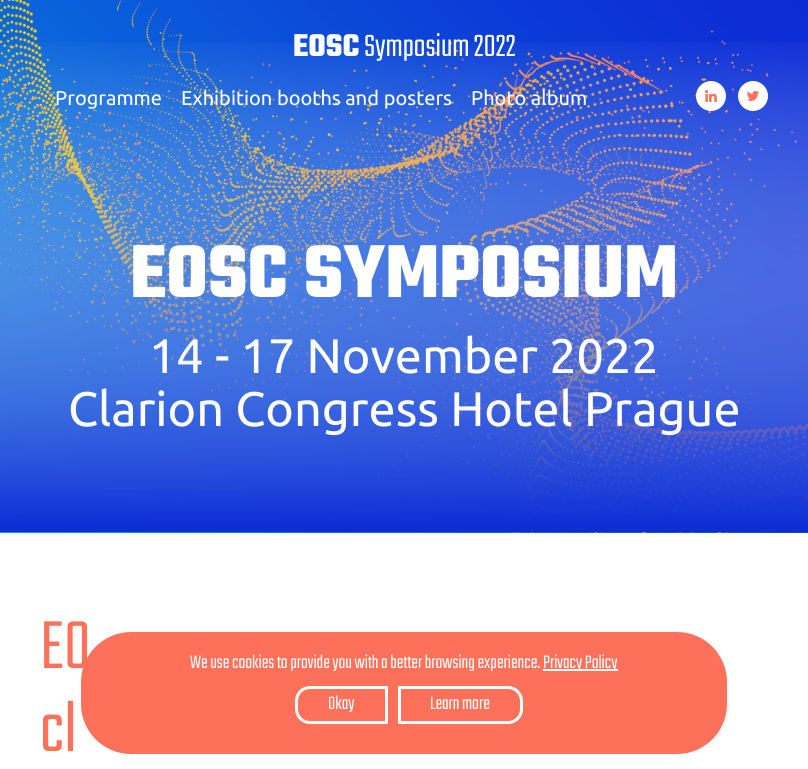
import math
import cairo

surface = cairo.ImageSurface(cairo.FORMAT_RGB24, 808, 769)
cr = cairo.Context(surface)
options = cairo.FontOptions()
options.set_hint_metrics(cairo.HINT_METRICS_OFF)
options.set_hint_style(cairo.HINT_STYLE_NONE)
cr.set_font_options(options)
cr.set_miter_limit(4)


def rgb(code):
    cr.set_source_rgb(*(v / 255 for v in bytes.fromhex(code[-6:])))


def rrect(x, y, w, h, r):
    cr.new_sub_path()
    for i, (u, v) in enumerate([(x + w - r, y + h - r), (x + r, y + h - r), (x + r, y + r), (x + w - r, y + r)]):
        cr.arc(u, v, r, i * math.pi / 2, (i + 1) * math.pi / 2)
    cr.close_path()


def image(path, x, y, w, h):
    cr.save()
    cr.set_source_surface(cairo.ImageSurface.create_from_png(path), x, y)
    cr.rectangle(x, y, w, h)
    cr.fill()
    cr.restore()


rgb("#ffffff")
cr.paint()
image("img/1.png", 0, 0, 808, 533)
image("img/2.png", 0, 42, 808, 490)
rgb("#ffffff")
cr.arc(711, 96, 15, 0, 2 * math.pi)
cr.fill()
image("img/3.png", 705, 90, 12, 12)
cr.arc(753, 96, 15, 0, 2 * math.pi)
cr.fill()
image("img/4.png", 747, 91, 12, 10)
rgb("#fd715b")
rrect(81, 632, 646, 122, 50)
cr.fill()
rgb("#ffffff")
cr.rectangle(543, 669, 75, 2)
cr.fill()
cr.new_path()
cr.move_to(310, 687.5)
cr.line_to(386.5, 687.5)
cr.line_to(386.5, 722.5)
cr.line_to(310, 722.5)
cr.curve_to(302.5, 722.5, 296.5, 716.5, 296.5, 709)
cr.line_to(296.5, 701)
cr.curve_to(296.5, 693.5, 302.5, 687.5, 310, 687.5)
cr.close_path()
cr.set_line_width(3)
cr.stroke()
cr.new_path()
cr.move_to(399.5, 687.5)
cr.line_to(508, 687.5)
cr.curve_to(515.5, 687.5, 521.5, 693.5, 521.5, 701)
cr.line_to(521.5, 709)
cr.curve_to(521.5, 716.5, 515.5, 722.5, 508, 722.5)
cr.line_to(399.5, 722.5)
cr.close_path()
cr.stroke()
cr.select_font_face("Teko", cairo.FONT_SLANT_NORMAL, cairo.FONT_WEIGHT_BOLD)
cr.set_font_size(34)
cr.move_to(293, 56)
cr.show_text("EOSC")
cr.select_font_face("Teko Light")
cr.move_to(364, 56)
cr.show_text("Symposium 2022")
cr.select_font_face("Ubuntu")
cr.set_font_size(20)
for x, y, s in [
    (55, 105, "Programme"),
    (181, 105, "Exhibition booths and posters"),
    (471, 105, "Photo album"),
]:
    cr.move_to(x, y)
    cr.show_text(s)
cr.select_font_face("Teko", cairo.FONT_SLANT_NORMAL, cairo.FONT_WEIGHT_BOLD)
cr.set_font_size(80.75)
cr.move_to(130, 297)
cr.show_text("EOSC SYMPOSIUM")
cr.select_font_face("Ubuntu")
cr.set_font_size(48.5)
cr.move_to(149, 373)
cr.show_text("14 - 17 November 2022")
cr.move_to(68, 426)
cr.show_text("Clarion Congress Hotel Prague")
cr.select_font_face("Teko Light")
cr.set_font_size(75)
rgb("#fd715b")
cr.move_to(40, 668)
cr.show_text("EO")
cr.move_to(40, 751)
cr.show_text("cl")
cr.set_font_size(20)
rgb("#ffffff")
for x, y, s in [
    (190, 668, "We use cookies to provide you with a better browsing experience."),
    (543, 668, "Privacy Policy"),
    (328, 709, "Okay"),
    (430, 709, "Learn more"),
]:
    cr.move_to(x, y)
    cr.show_text(s)
surface.write_to_png("page.png")
